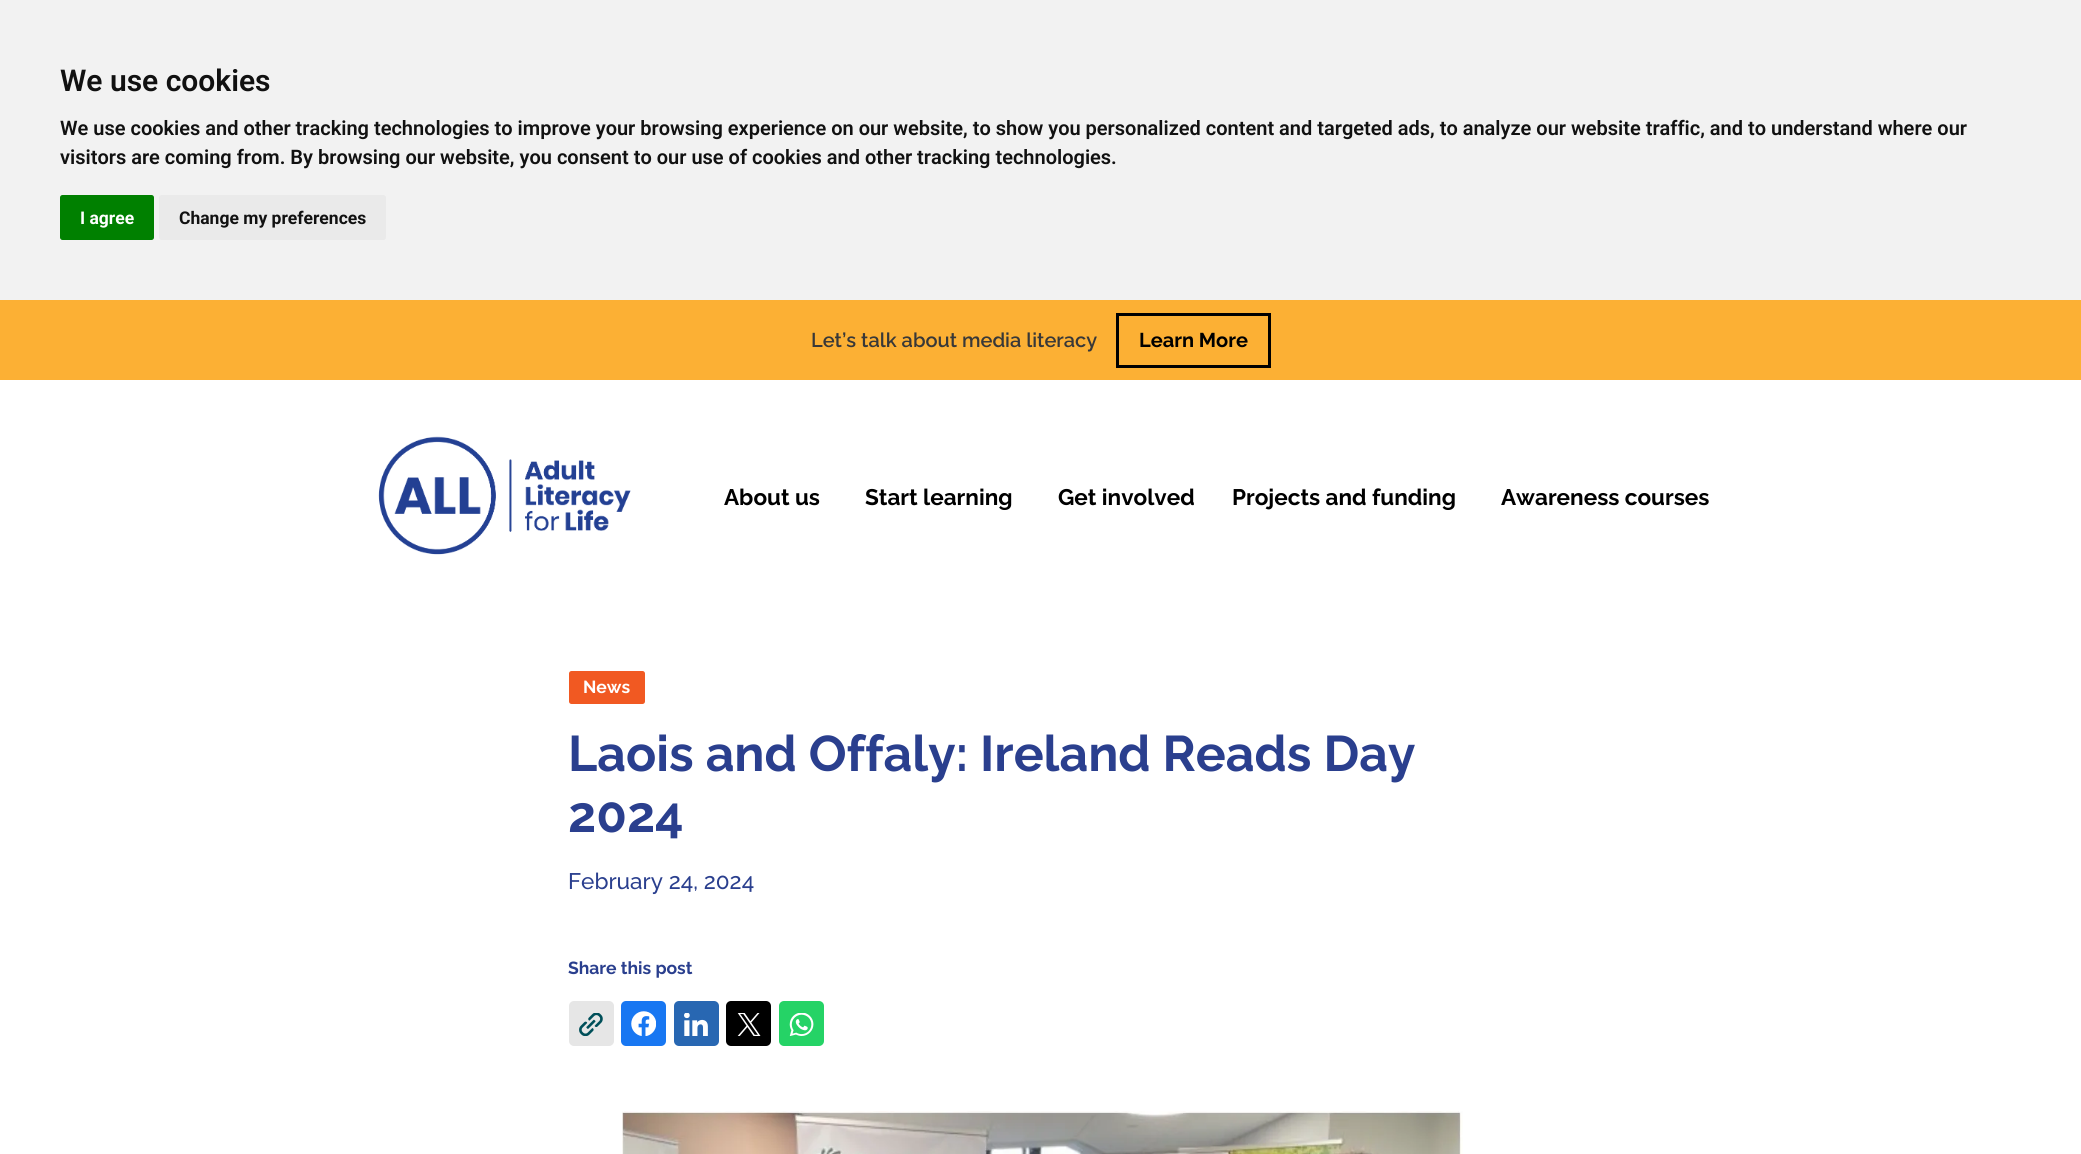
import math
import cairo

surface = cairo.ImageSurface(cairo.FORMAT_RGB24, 2081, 1154)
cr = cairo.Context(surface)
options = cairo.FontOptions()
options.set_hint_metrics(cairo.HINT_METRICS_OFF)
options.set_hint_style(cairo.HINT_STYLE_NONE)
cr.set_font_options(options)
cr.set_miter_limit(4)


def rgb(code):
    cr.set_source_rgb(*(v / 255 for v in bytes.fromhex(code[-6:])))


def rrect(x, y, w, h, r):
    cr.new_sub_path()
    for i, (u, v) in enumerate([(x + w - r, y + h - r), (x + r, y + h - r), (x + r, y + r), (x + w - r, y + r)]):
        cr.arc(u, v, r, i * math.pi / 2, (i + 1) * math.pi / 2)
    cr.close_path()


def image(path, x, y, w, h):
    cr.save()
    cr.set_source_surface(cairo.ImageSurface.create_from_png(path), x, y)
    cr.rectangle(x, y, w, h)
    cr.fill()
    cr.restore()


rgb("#ffffff")
cr.paint()
rgb("#f2f2f2")
cr.rectangle(0, 0, 2081, 300)
cr.fill()
rgb("#008000")
rrect(60, 195, 94, 45, 2.5)
cr.fill()
rgb("#eaeaea")
rrect(159, 195, 227, 45, 2.5)
cr.fill()
rgb("#fcb034")
cr.rectangle(0, 300, 2081, 80)
cr.fill()
cr.rectangle(1117.5, 314.5, 152, 52)
rgb("#000000")
cr.set_line_width(3)
cr.stroke()
image("img/1.png", 378, 436, 253, 119)
rgb("#f15922")
rrect(569, 671, 76, 33, 2.5)
cr.fill()
rgb("#e6e6e6")
rrect(569, 1001, 45, 45, 5)
cr.fill()
image("img/2.png", 579, 1013, 24, 23)
rgb("#1877f2")
rrect(621, 1001, 45, 45, 5)
cr.fill()
image("img/3.png", 631, 1011, 25, 25)
rgb("#2867b2")
rrect(674, 1001, 45, 45, 5)
cr.fill()
image("img/4.png", 684, 1013, 24, 23)
rgb("#000000")
rrect(726, 1001, 45, 45, 5)
cr.fill()
image("img/5.png", 737, 1013, 24, 23)
rgb("#25d366")
rrect(779, 1001, 45, 45, 5)
cr.fill()
image("img/6.png", 789, 1013, 25, 23)
image("img/7.png", 622, 1111, 841, 43)
cr.select_font_face("Roboto SemiBold")
cr.set_font_size(30)
rgb("#111111")
cr.move_to(60, 91)
cr.show_text("We use cookies")
cr.set_font_size(20)
cr.move_to(60, 135)
cr.show_text("We use cookies and other tracking technologies to improve your browsing experience on our website, to show you personalized content and targeted ads, to analyze our website traffic, and to understand where our")
cr.move_to(60, 164)
cr.show_text("visitors are coming from. By browsing our website, you consent to our use of cookies and other tracking technologies.")
cr.select_font_face("Roboto", cairo.FONT_SLANT_NORMAL, cairo.FONT_WEIGHT_BOLD)
cr.set_font_size(17.5)
rgb("#ffffff")
cr.move_to(80, 224)
cr.show_text("I agree")
rgb("#111111")
cr.move_to(179, 224)
cr.show_text("Change my preferences")
cr.select_font_face("Raleway SemiBold")
cr.set_font_size(20)
rgb("#383838")
cr.move_to(811, 347)
cr.show_text("Let’s talk about media literacy")
cr.select_font_face("Raleway", cairo.FONT_SLANT_NORMAL, cairo.FONT_WEIGHT_BOLD)
rgb("#000000")
cr.move_to(1139, 347)
cr.show_text("Learn More")
cr.set_font_size(22.5)
for x, y, s in [
    (724, 505, "About us"),
    (865, 505, "Start learning"),
    (1058, 505, "Get involved"),
    (1232, 505, "Projects and funding"),
    (1501, 505, "Awareness courses"),
]:
    cr.move_to(x, y)
    cr.show_text(s)
cr.set_font_size(17.5)
rgb("#ffffff")
cr.move_to(583, 693)
cr.show_text("News")
cr.set_font_size(50)
rgb("#2a3f8e")
cr.move_to(568, 771)
cr.show_text("Laois and Offaly: Ireland Reads Day")
cr.move_to(568, 832)
cr.show_text("2024")
cr.select_font_face("Raleway Medium")
cr.set_font_size(22.5)
cr.move_to(568, 889)
cr.show_text("February 24, 2024")
cr.select_font_face("Raleway", cairo.FONT_SLANT_NORMAL, cairo.FONT_WEIGHT_BOLD)
cr.set_font_size(17.5)
cr.move_to(568, 974)
cr.show_text("Share this post")
surface.write_to_png("page.png")
